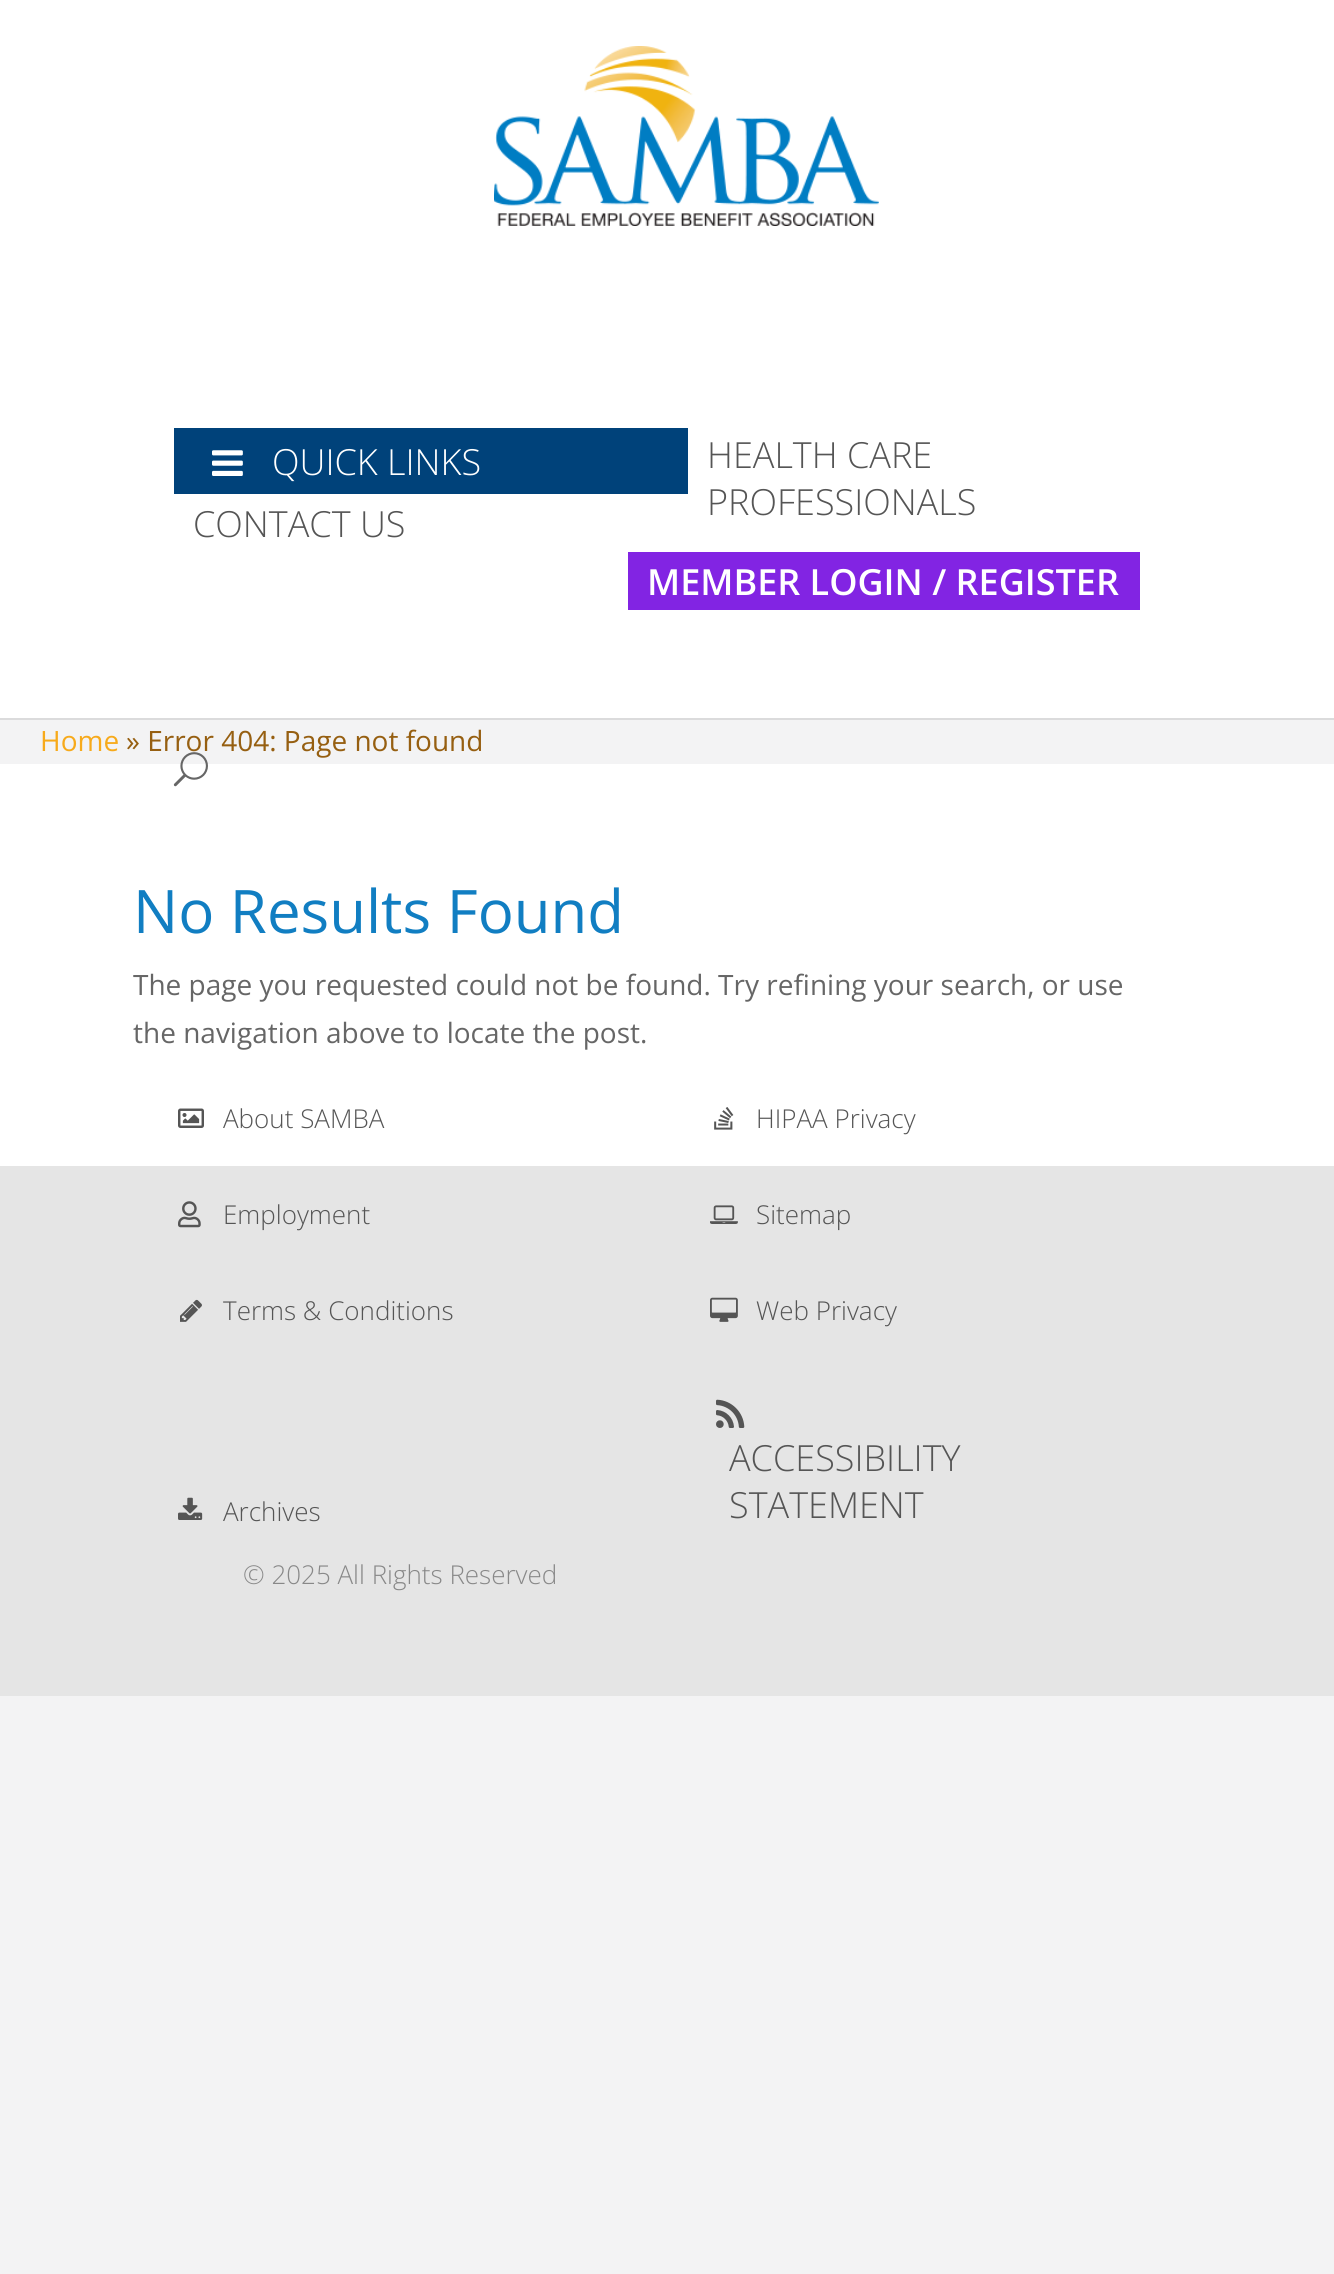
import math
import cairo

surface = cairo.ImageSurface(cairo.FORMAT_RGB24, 1334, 2274)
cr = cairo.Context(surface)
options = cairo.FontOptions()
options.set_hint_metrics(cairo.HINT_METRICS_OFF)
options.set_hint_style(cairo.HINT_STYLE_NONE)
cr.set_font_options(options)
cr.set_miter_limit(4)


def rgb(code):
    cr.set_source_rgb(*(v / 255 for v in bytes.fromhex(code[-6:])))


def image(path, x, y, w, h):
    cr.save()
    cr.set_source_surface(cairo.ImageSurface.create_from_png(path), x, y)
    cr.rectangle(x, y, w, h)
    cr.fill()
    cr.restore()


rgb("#f3f3f4")
cr.paint()
rgb("#dbdbdc")
cr.rectangle(0, 718, 1334, 2)
cr.fill()
rgb("#ffffff")
cr.rectangle(0, 0, 1334, 718)
cr.fill()
image("img/1.png", 494, 46, 385, 180)
rgb("#00427a")
cr.rectangle(174, 428, 514, 66)
cr.fill()
image("img/2.png", 212, 450, 31, 26)
for x, y, w, h, color in [
    (628, 552, 512, 58, "#8224e3"),
    (0, 764, 1334, 402, "#ffffff"),
    (0, 1166, 1334, 530, "#e5e5e5"),
]:
    rgb(color)
    cr.rectangle(x, y, w, h)
    cr.fill()
image("img/4.png", 178, 1108, 26, 20)
image("img/5.png", 714, 1107, 20, 23)
image("img/6.png", 178, 1201, 23, 27)
image("img/7.png", 710, 1205, 28, 19)
image("img/8.png", 180, 1299, 22, 23)
image("img/9.png", 710, 1297, 28, 25)
image("img/10.png", 178, 1497, 25, 23)
image("img/11.png", 716, 1399, 29, 29)
cr.select_font_face("Open Sans Light")
cr.set_font_size(36)
rgb("#ffffff")
cr.move_to(272, 475)
cr.show_text("QUICK LINKS")
rgb("#555555")
for x, y, s in [
    (707, 468, "HEALTH CARE"),
    (707, 515, "PROFESSIONALS"),
    (193, 537, "CONTACT US"),
]:
    cr.move_to(x, y)
    cr.show_text(s)
cr.select_font_face("Open Sans SemiBold")
rgb("#ffffff")
cr.move_to(647, 595)
cr.show_text("MEMBER LOGIN / REGISTER")
cr.select_font_face("Open Sans")
cr.set_font_size(28)
rgb("#f7aa1b")
cr.move_to(40, 751)
cr.show_text("Home")
rgb("#965f11")
cr.move_to(126, 751)
cr.show_text("» Error 404: Page not found")
image("img/3.png", 173, 752, 35, 35)
cr.set_font_size(60)
rgb("#117ec2")
cr.move_to(133, 933)
cr.show_text("No Results Found")
cr.set_font_size(28)
rgb("#666666")
cr.move_to(133, 995)
cr.show_text("The page you requested could not be found. Try refining your search, or use")
cr.move_to(133, 1043)
cr.show_text("the navigation above to locate the post.")
cr.select_font_face("Open Sans Light")
cr.set_font_size(26)
rgb("#555555")
for x, y, s in [
    (223, 1128, "About SAMBA"),
    (756, 1128, "HIPAA Privacy"),
    (223, 1224, "Employment"),
    (756, 1224, "Sitemap"),
    (223, 1320, "Terms & Conditions"),
    (756, 1320, "Web Privacy"),
    (223, 1521, "Archives"),
]:
    cr.move_to(x, y)
    cr.show_text(s)
cr.set_font_size(36)
cr.move_to(729, 1471)
cr.show_text("ACCESSIBILITY")
cr.move_to(729, 1518)
cr.show_text("STATEMENT")
cr.set_font_size(26)
rgb("#888888")
cr.move_to(243, 1584)
cr.show_text("© 2025 All Rights Reserved")
surface.write_to_png("page.png")
